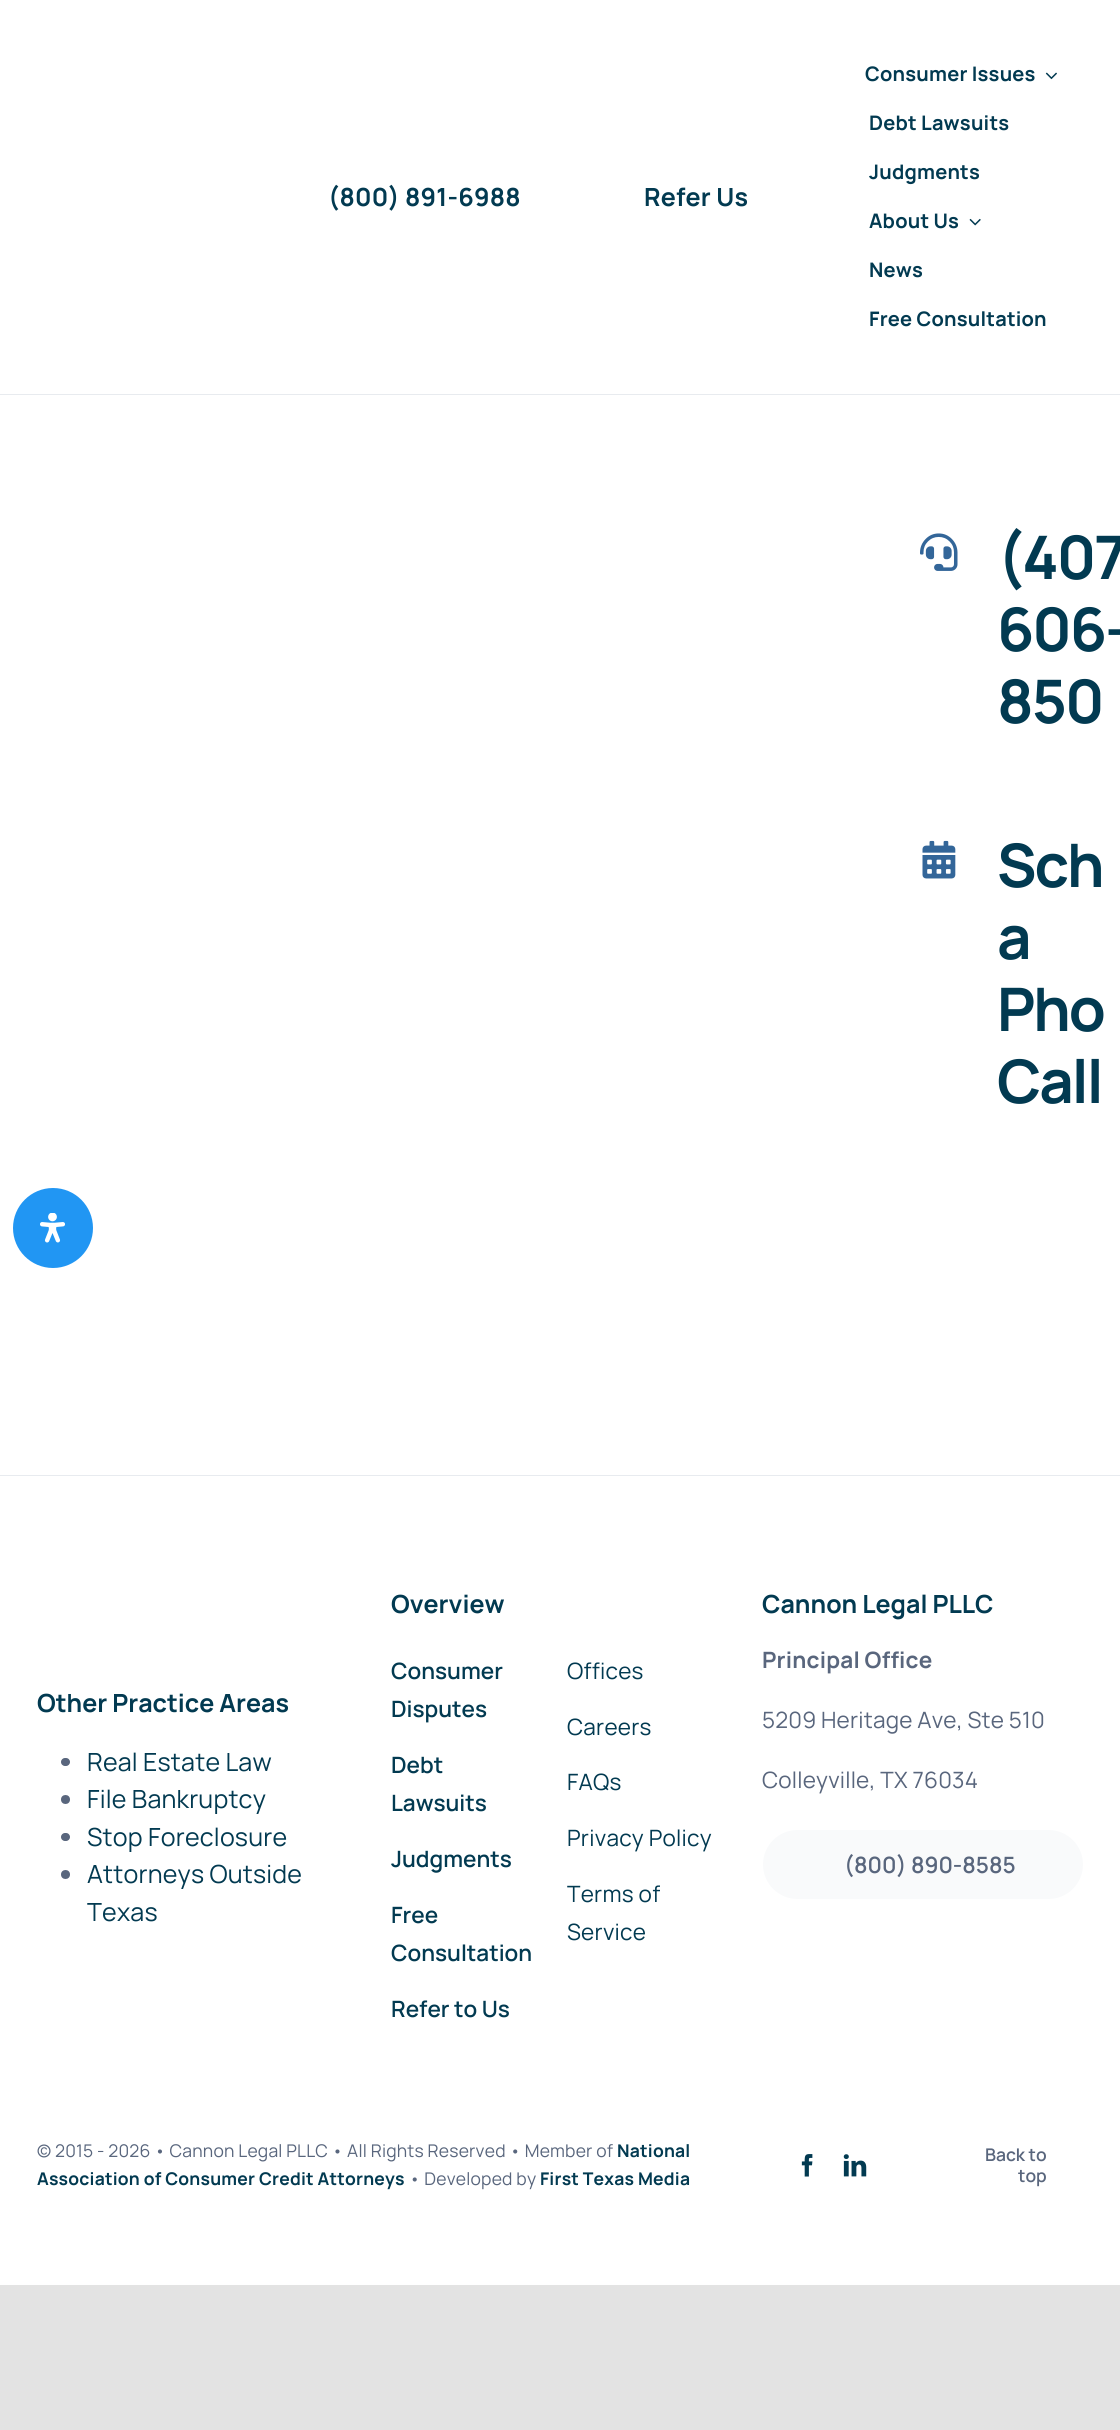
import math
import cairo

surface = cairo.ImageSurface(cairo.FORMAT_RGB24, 1120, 2430)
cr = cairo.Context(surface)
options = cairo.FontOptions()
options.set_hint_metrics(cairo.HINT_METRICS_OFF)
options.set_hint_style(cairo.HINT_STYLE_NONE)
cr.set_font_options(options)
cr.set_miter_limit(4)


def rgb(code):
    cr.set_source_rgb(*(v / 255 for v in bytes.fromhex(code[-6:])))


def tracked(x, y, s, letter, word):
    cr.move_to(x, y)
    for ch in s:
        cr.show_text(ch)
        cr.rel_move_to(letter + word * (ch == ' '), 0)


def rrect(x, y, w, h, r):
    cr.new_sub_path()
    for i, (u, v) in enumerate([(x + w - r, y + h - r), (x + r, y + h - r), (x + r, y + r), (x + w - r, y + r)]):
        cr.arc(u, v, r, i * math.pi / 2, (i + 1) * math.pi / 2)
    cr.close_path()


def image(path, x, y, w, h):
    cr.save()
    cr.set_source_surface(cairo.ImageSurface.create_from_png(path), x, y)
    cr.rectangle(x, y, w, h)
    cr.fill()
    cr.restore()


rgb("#e3e3e3")
cr.paint()
rgb("#ffffff")
cr.rectangle(0, 0, 1120, 2285)
cr.fill()
rgb("#e8ebef")
cr.rectangle(0, 394, 1120, 1)
cr.fill()
image("img/1.png", 1045, 72, 12, 8)
image("img/2.png", 969, 218, 12, 8)
image("img/3.png", 920, 533, 38, 38)
image("img/4.png", 922, 840, 34, 39)
cr.rectangle(0, 1475, 1120, 1)
cr.fill()
rgb("#59667d")
rrect(61, 1758, 9, 8, 4)
cr.fill()
cr.arc(65.5, 1799.5, 4.5, 0, 2 * math.pi)
cr.fill()
rrect(61, 1833, 9, 8, 4)
cr.fill()
cr.arc(65.5, 1874.5, 4.5, 0, 2 * math.pi)
cr.fill()
rgb("#f9fafb")
rrect(763, 1830, 320, 69, 34.5)
cr.fill()
image("img/5.png", 801, 2154, 12, 23)
image("img/6.png", 843, 2154, 24, 23)
rgb("#2196f3")
cr.arc(53, 1228, 40, 0, 2 * math.pi)
cr.fill()
image("img/7.png", 40, 1213, 25, 30)
cr.select_font_face("Manrope", cairo.FONT_SLANT_NORMAL, cairo.FONT_WEIGHT_BOLD)
cr.set_font_size(25)
rgb("#023a51")
tracked(328, 206, "(800) 891-6988", 0.2, 0)
tracked(644, 206, "Refer Us", 0.2, 0)
cr.set_font_size(20)
for x, y, s in [
    (865, 81, "Consumer Issues"),
    (869, 130, "Debt Lawsuits"),
    (869, 179, "Judgments"),
    (869, 228, "About Us"),
    (869, 277, "News"),
    (869, 326, "Free Consultation"),
]:
    tracked(x, y, s, 0.2, 0)
cr.set_font_size(60)
for x, y, s in [
    (997, 579, "(407"),
    (997, 651, "606-"),
    (997, 723, "850"),
    (997, 887, "Sch"),
    (997, 959, "a"),
    (997, 1031, "Pho"),
    (997, 1103, "Call"),
]:
    tracked(x, y, s, -2, 0)
cr.set_font_size(25)
cr.move_to(37, 1712)
cr.show_text("Other Practice Areas")
cr.select_font_face("Manrope")
for x, y, s in [
    (87, 1771, "Real Estate Law"),
    (87, 1808, "File Bankruptcy"),
    (87, 1846, "Stop Foreclosure"),
    (87, 1883, "Attorneys Outside"),
    (87, 1921, "Texas"),
]:
    tracked(x, y, s, 0.2, 0)
cr.select_font_face("Manrope", cairo.FONT_SLANT_NORMAL, cairo.FONT_WEIGHT_BOLD)
cr.move_to(391, 1613)
cr.show_text("Overview")
cr.select_font_face("Manrope SemiBold")
cr.set_font_size(22.5)
for x, y, s in [
    (391, 1679, "Consumer"),
    (391, 1717, "Disputes"),
    (391, 1773, "Debt"),
    (391, 1811, "Lawsuits"),
    (391, 1867, "Judgments"),
    (391, 1923, "Free"),
    (391, 1961, "Consultation"),
    (391, 2017, "Refer to Us"),
]:
    cr.move_to(x, y)
    cr.show_text(s)
cr.select_font_face("Manrope")
for x, y, s in [
    (567, 1679, "Offices"),
    (567, 1735, "Careers"),
    (567, 1790, "FAQs"),
    (567, 1846, "Privacy Policy"),
    (567, 1902, "Terms of"),
    (567, 1940, "Service"),
]:
    tracked(x, y, s, 0.25, 0)
cr.select_font_face("Manrope", cairo.FONT_SLANT_NORMAL, cairo.FONT_WEIGHT_BOLD)
cr.set_font_size(25)
cr.move_to(762, 1613)
cr.show_text("Cannon Legal PLLC")
cr.set_font_size(22.5)
rgb("#59667d")
tracked(762, 1668, "Principal Office", 0.2, 0)
cr.select_font_face("Manrope")
tracked(762, 1728, "5209 Heritage Ave, Ste 510", 0.2, 0)
tracked(762, 1788, "Colleyville, TX 76034", 0.2, 0)
cr.select_font_face("Manrope SemiBold")
cr.move_to(844, 1873)
cr.show_text("(800) 890-8585")
cr.select_font_face("Manrope")
cr.set_font_size(17.5)
tracked(37, 2157, "© 2015 - 2026 • Cannon Legal PLLC • All Rights Reserved • Member of", 0.2, 0)
cr.select_font_face("Manrope", cairo.FONT_SLANT_NORMAL, cairo.FONT_WEIGHT_BOLD)
rgb("#023a51")
tracked(617, 2157, "National", 0.2, 0)
tracked(37, 2185, "Association of Consumer Credit Attorneys", 0.2, 0)
cr.select_font_face("Manrope")
rgb("#59667d")
tracked(409, 2185, "• Developed by", 0.2, 0)
cr.select_font_face("Manrope", cairo.FONT_SLANT_NORMAL, cairo.FONT_WEIGHT_BOLD)
rgb("#023a51")
tracked(540, 2185, "First Texas Media", 0.2, 0)
cr.select_font_face("Manrope SemiBold")
rgb("#59667d")
cr.move_to(985, 2161)
cr.show_text("Back to")
cr.move_to(1018, 2182)
cr.show_text("top")
surface.write_to_png("page.png")
